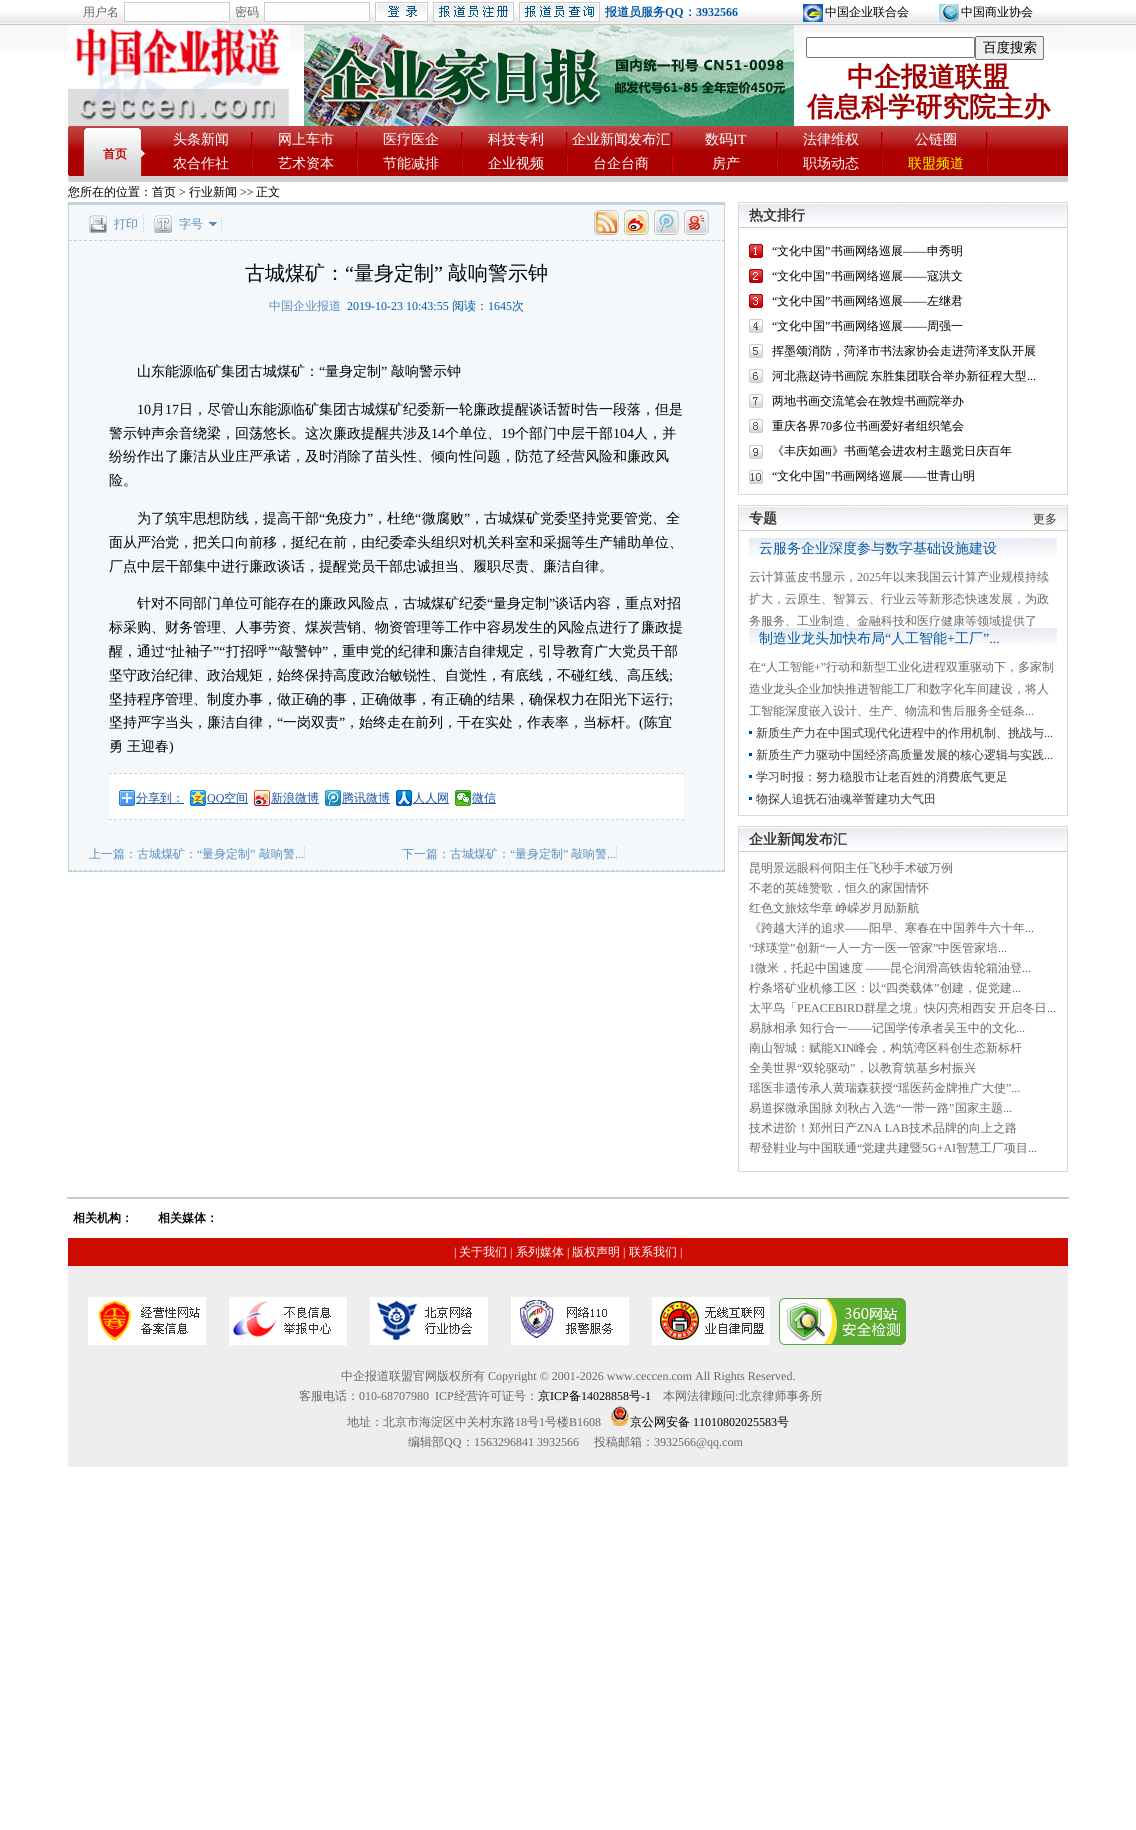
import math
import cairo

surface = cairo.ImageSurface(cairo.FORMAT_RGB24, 1136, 1830)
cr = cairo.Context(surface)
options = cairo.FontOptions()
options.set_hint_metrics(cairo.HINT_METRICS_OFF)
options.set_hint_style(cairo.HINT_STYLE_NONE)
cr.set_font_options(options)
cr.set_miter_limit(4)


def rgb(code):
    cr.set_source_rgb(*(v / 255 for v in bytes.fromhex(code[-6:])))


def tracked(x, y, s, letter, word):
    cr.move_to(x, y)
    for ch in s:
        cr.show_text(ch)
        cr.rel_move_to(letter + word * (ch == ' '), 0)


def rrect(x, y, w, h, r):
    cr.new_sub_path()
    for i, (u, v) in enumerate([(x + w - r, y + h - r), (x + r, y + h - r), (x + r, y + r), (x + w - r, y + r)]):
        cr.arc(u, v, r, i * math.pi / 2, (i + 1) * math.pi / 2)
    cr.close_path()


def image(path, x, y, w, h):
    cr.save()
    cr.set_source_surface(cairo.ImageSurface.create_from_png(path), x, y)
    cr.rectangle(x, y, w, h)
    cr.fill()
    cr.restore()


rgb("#ffffff")
cr.paint()
image("img/1.png", 0, 25, 1136, 26)
image("img/2.png", 0, 0, 1136, 25)
rgb("#ffffff")
cr.rectangle(125, 11, 104, 10)
cr.fill()
cr.rectangle(124.5, 2.5, 105, 19)
rgb("#cccccc")
cr.set_line_width(1)
cr.stroke()
rgb("#ffffff")
cr.rectangle(265, 11, 104, 10)
cr.fill()
cr.rectangle(264.5, 2.5, 105, 19)
rgb("#cccccc")
cr.stroke()
image("img/3.png", 375, 2, 53, 20)
image("img/4.png", 433, 2, 81, 20)
image("img/5.png", 519, 2, 81, 20)
image("img/6.png", 803, 4, 20, 18)
image("img/7.png", 939, 4, 20, 18)
rgb("#f2f2f2")
cr.rectangle(289, 25, 779, 2)
cr.fill()
image("img/8.png", 68, 25, 221, 101)
image("img/9.png", 304, 25, 490, 101)
rgb("#ffffff")
cr.rectangle(803, 33, 244, 18)
cr.fill()
rrect(806.5, 37.5, 168, 20, 1.5)
rgb("#767676")
cr.stroke()
rgb("#efefef")
rrect(975.5, 36.5, 68, 23, 1.5)
cr.fill_preserve()
rgb("#767676")
cr.stroke()
image("img/10.png", 69, 126, 999, 56)
image("img/11.png", 68, 126, 1, 56)
image("img/12.png", 251, 132, 2, 16)
image("img/12.png", 356, 132, 2, 16)
image("img/12.png", 461, 132, 2, 16)
image("img/12.png", 566, 132, 2, 16)
image("img/12.png", 671, 132, 2, 16)
image("img/12.png", 776, 132, 2, 16)
image("img/12.png", 881, 132, 2, 16)
image("img/12.png", 986, 132, 2, 16)
image("img/13.png", 82, 128, 65, 48)
image("img/12.png", 251, 156, 2, 16)
image("img/12.png", 356, 156, 2, 16)
image("img/12.png", 461, 156, 2, 16)
image("img/12.png", 566, 156, 2, 16)
image("img/12.png", 671, 156, 2, 16)
image("img/12.png", 776, 156, 2, 16)
image("img/12.png", 881, 156, 2, 16)
image("img/12.png", 986, 156, 2, 16)
for x, y, w, h, color in [
    (69, 205, 655, 666, "#f4f8fa"),
    (68, 202, 657, 3, "#c2d4da"),
    (724, 202, 1, 670, "#c2d4da"),
    (68, 871, 657, 1, "#c2d4da"),
    (68, 202, 1, 670, "#c2d4da"),
]:
    rgb(color)
    cr.rectangle(x, y, w, h)
    cr.fill()
cr.new_path()
cr.move_to(69, 240.5)
cr.line_to(724, 240.5)
rgb("#c1d3d9")
cr.set_dash([3, 2.02])
cr.stroke()
image("img/14.png", 89, 215, 18, 18)
cr.new_path()
cr.move_to(143.5, 215)
cr.line_to(143.5, 233)
cr.set_dash([1, 1])
cr.stroke()
image("img/15.png", 154, 215, 18, 18)
cr.new_path()
cr.move_to(221.5, 215)
cr.line_to(221.5, 233)
cr.stroke()
image("img/16.png", 209, 222, 8, 4)
image("img/17.png", 594, 210, 25, 25)
image("img/18.png", 624, 210, 25, 25)
image("img/19.png", 654, 210, 25, 25)
image("img/20.png", 684, 210, 25, 25)
rgb("#ffffff")
cr.rectangle(109, 773, 575, 47)
cr.fill()
cr.new_path()
cr.move_to(109, 773.5)
cr.line_to(684, 773.5)
rgb("#d3d3d3")
cr.set_dash([3, 2.02])
cr.stroke()
cr.new_path()
cr.move_to(109, 819.5)
cr.line_to(684, 819.5)
cr.stroke()
image("img/21.png", 119, 790, 16, 16)
rgb("#1e50a2")
cr.rectangle(136, 803, 48, 1)
cr.fill()
image("img/22.png", 190, 790, 16, 16)
cr.rectangle(207, 803, 41, 1)
cr.fill()
image("img/23.png", 254, 790, 16, 16)
cr.rectangle(271, 803, 48, 1)
cr.fill()
image("img/24.png", 325, 790, 16, 16)
cr.rectangle(342, 803, 48, 1)
cr.fill()
image("img/25.png", 396, 790, 16, 16)
cr.rectangle(413, 803, 36, 1)
cr.fill()
image("img/26.png", 455, 790, 16, 16)
cr.rectangle(472, 803, 24, 1)
cr.fill()
cr.new_path()
cr.move_to(69, 870.5)
cr.line_to(724, 870.5)
rgb("#c1d3d9")
cr.stroke()
cr.new_path()
cr.move_to(304.5, 847)
cr.line_to(304.5, 861)
cr.set_dash([1, 1])
cr.stroke()
cr.new_path()
cr.move_to(616.5, 847)
cr.line_to(616.5, 861)
cr.stroke()
cr.rectangle(738.5, 202.5, 329, 292)
rgb("#dbdada")
cr.set_dash([])
cr.stroke()
image("img/27.png", 739, 204, 328, 24)
image("img/28.png", 749, 244, 14, 240)
cr.rectangle(738.5, 505.5, 329, 310)
cr.stroke()
image("img/27.png", 739, 507, 328, 24)
image("img/29.png", 749, 538, 308, 18)
image("img/29.png", 749, 628, 308, 18)
for x, y, w, h, color in [
    (749, 731, 3, 3, "#014991"),
    (749, 753, 3, 3, "#014991"),
    (749, 775, 3, 3, "#014991"),
    (749, 797, 3, 3, "#014991"),
]:
    rgb(color)
    cr.rectangle(x, y, w, h)
    cr.fill()
cr.rectangle(738.5, 826.5, 329, 345)
rgb("#dbdada")
cr.stroke()
image("img/27.png", 739, 828, 328, 24)
for x, y, w, h, color in [
    (67, 1197, 1002, 2, "#cccccc"),
    (68, 1238, 1000, 28, "#cd0b02"),
    (68, 1266, 1000, 201, "#eeeeee"),
]:
    rgb(color)
    cr.rectangle(x, y, w, h)
    cr.fill()
image("img/30.png", 88, 1297, 118, 48)
image("img/31.png", 229, 1297, 118, 48)
image("img/32.png", 370, 1297, 118, 48)
image("img/33.png", 511, 1297, 118, 48)
image("img/34.png", 652, 1297, 118, 48)
image("img/35.png", 779, 1298, 127, 47)
image("img/36.png", 611, 1406, 18, 20)
cr.select_font_face("WenQuanYi Zen Hei Medium")
cr.set_font_size(12)
rgb("#666666")
cr.move_to(83, 16)
cr.show_text("用户名")
cr.move_to(235, 16)
cr.show_text("密码")
cr.select_font_face("WenQuanYi Zen Hei", cairo.FONT_SLANT_NORMAL, cairo.FONT_WEIGHT_BOLD)
rgb("#0158a7")
cr.move_to(605, 16)
cr.show_text("报道员服务")
cr.select_font_face("Liberation Serif", cairo.FONT_SLANT_NORMAL, cairo.FONT_WEIGHT_BOLD)
cr.move_to(665, 16)
cr.show_text("QQ")
cr.select_font_face("WenQuanYi Zen Hei", cairo.FONT_SLANT_NORMAL, cairo.FONT_WEIGHT_BOLD)
cr.move_to(684, 16)
cr.show_text("：")
cr.select_font_face("Liberation Serif", cairo.FONT_SLANT_NORMAL, cairo.FONT_WEIGHT_BOLD)
cr.move_to(696, 16)
cr.show_text("3932566")
cr.select_font_face("WenQuanYi Zen Hei Medium")
rgb("#000000")
cr.move_to(825, 16)
cr.show_text("中国企业联合会")
cr.move_to(961, 16)
cr.show_text("中国商业协会")
cr.set_font_size(13.5)
cr.move_to(983, 52)
cr.show_text("百度搜索")
cr.select_font_face("WenQuanYi Zen Hei", cairo.FONT_SLANT_NORMAL, cairo.FONT_WEIGHT_BOLD)
cr.set_font_size(27)
rgb("#a00000")
cr.move_to(847, 86)
cr.show_text("中企报道联盟")
cr.move_to(807, 116)
cr.show_text("信息科学研究院主办")
cr.select_font_face("WenQuanYi Zen Hei Medium")
cr.set_font_size(14)
rgb("#ffffff")
for x, y, s in [
    (173, 144, "头条新闻"),
    (278, 144, "网上车市"),
    (383, 144, "医疗医企"),
    (488, 144, "科技专利"),
    (572, 144, "企业新闻发布汇"),
    (705, 144, "数码"),
]:
    cr.move_to(x, y)
    cr.show_text(s)
cr.select_font_face("Liberation Serif")
cr.move_to(733, 144)
cr.show_text("IT")
cr.select_font_face("WenQuanYi Zen Hei Medium")
cr.move_to(803, 144)
cr.show_text("法律维权")
cr.move_to(915, 144)
cr.show_text("公链圈")
cr.select_font_face("WenQuanYi Zen Hei", cairo.FONT_SLANT_NORMAL, cairo.FONT_WEIGHT_BOLD)
cr.set_font_size(12)
rgb("#ba0000")
cr.move_to(103, 158)
cr.show_text("首页")
cr.select_font_face("WenQuanYi Zen Hei Medium")
cr.set_font_size(14)
rgb("#ffffff")
for x, y, s in [
    (173, 168, "农合作社"),
    (278, 168, "艺术资本"),
    (383, 168, "节能减排"),
    (488, 168, "企业视频"),
    (593, 168, "台企台商"),
    (712, 168, "房产"),
    (803, 168, "职场动态"),
]:
    cr.move_to(x, y)
    cr.show_text(s)
rgb("#ffff00")
cr.move_to(908, 168)
cr.show_text("联盟频道")
cr.set_font_size(12)
rgb("#000000")
cr.move_to(68, 196)
cr.show_text("您所在的位置：首页")
cr.select_font_face("Liberation Serif")
cr.move_to(179, 196)
cr.show_text(">")
cr.select_font_face("WenQuanYi Zen Hei Medium")
cr.move_to(189, 196)
cr.show_text("行业新闻")
cr.select_font_face("Liberation Serif")
cr.move_to(240, 196)
cr.show_text(">>")
cr.select_font_face("WenQuanYi Zen Hei Medium")
cr.move_to(256, 196)
cr.show_text("正文")
rgb("#588cc0")
cr.move_to(114, 228)
cr.show_text("打印")
cr.move_to(179, 228)
cr.show_text("字号")
cr.set_font_size(20)
rgb("#000000")
cr.move_to(245, 280)
cr.show_text("古城煤矿：")
cr.select_font_face("Liberation Serif")
cr.move_to(345, 280)
cr.show_text("“")
cr.select_font_face("WenQuanYi Zen Hei Medium")
cr.move_to(354, 280)
cr.show_text("量身定制")
cr.select_font_face("Liberation Serif")
cr.move_to(434, 280)
cr.show_text("”")
cr.select_font_face("WenQuanYi Zen Hei Medium")
cr.move_to(448, 280)
cr.show_text("敲响警示钟")
cr.set_font_size(12)
rgb("#588cc0")
cr.move_to(269, 310)
cr.show_text("中国企业报道")
cr.select_font_face("Liberation Serif")
rgb("#0158a7")
cr.move_to(347, 310)
cr.show_text("2019-10-23 10:43:55")
cr.select_font_face("WenQuanYi Zen Hei Medium")
cr.move_to(452, 310)
cr.show_text("阅读：")
cr.select_font_face("Liberation Serif")
cr.move_to(488, 310)
cr.show_text("1645")
cr.select_font_face("WenQuanYi Zen Hei Medium")
cr.move_to(512, 310)
cr.show_text("次")
cr.set_font_size(14)
rgb("#000000")
cr.move_to(137, 376)
cr.show_text("山东能源临矿集团古城煤矿：")
cr.select_font_face("Liberation Serif")
cr.move_to(319, 376)
cr.show_text("“")
cr.select_font_face("WenQuanYi Zen Hei Medium")
cr.move_to(325, 376)
cr.show_text("量身定制")
cr.select_font_face("Liberation Serif")
cr.move_to(381, 376)
cr.show_text("”")
cr.select_font_face("WenQuanYi Zen Hei Medium")
cr.move_to(391, 376)
cr.show_text("敲响警示钟")
cr.select_font_face("Liberation Serif")
cr.move_to(137, 414)
cr.show_text("10")
cr.select_font_face("WenQuanYi Zen Hei Medium")
cr.move_to(151, 414)
cr.show_text("月")
cr.select_font_face("Liberation Serif")
cr.move_to(165, 414)
cr.show_text("17")
cr.select_font_face("WenQuanYi Zen Hei Medium")
cr.move_to(179, 414)
cr.show_text("日，尽管山东能源临矿集团古城煤矿纪委新一轮廉政提醒谈话暂时告一段落，但是")
cr.move_to(109, 438)
cr.show_text("警示钟声余音绕梁，回荡悠长。这次廉政提醒共涉及")
cr.select_font_face("Liberation Serif")
cr.move_to(431, 438)
cr.show_text("14")
cr.select_font_face("WenQuanYi Zen Hei Medium")
cr.move_to(445, 438)
cr.show_text("个单位、")
cr.select_font_face("Liberation Serif")
cr.move_to(501, 438)
cr.show_text("19")
cr.select_font_face("WenQuanYi Zen Hei Medium")
cr.move_to(515, 438)
cr.show_text("个部门中层干部")
cr.select_font_face("Liberation Serif")
cr.move_to(613, 438)
cr.show_text("104")
cr.select_font_face("WenQuanYi Zen Hei Medium")
for x, y, s in [
    (634, 438, "人，并"),
    (109, 461, "纷纷作出了廉洁从业庄严承诺，及时消除了苗头性、倾向性问题，防范了经营风险和廉政风"),
    (109, 485, "险。"),
    (137, 523, "为了筑牢思想防线，提高干部"),
]:
    cr.move_to(x, y)
    cr.show_text(s)
cr.select_font_face("Liberation Serif")
cr.move_to(319, 523)
cr.show_text("“")
cr.select_font_face("WenQuanYi Zen Hei Medium")
cr.move_to(325, 523)
cr.show_text("免疫力")
cr.select_font_face("Liberation Serif")
cr.move_to(367, 523)
cr.show_text("”")
cr.select_font_face("WenQuanYi Zen Hei Medium")
cr.move_to(373, 523)
cr.show_text("，杜绝")
cr.select_font_face("Liberation Serif")
cr.move_to(415, 523)
cr.show_text("“")
cr.select_font_face("WenQuanYi Zen Hei Medium")
cr.move_to(422, 523)
cr.show_text("微腐败")
cr.select_font_face("Liberation Serif")
cr.move_to(464, 523)
cr.show_text("”")
cr.select_font_face("WenQuanYi Zen Hei Medium")
for x, y, s in [
    (470, 523, "，古城煤矿党委坚持党要管党、全"),
    (109, 547, "面从严治党，把关口向前移，挺纪在前，由纪委牵头组织对机关科室和采掘等生产辅助单位、"),
    (109, 571, "厂点中层干部集中进行廉政谈话，提醒党员干部忠诚担当、履职尽责、廉洁自律。"),
    (137, 608, "针对不同部门单位可能存在的廉政风险点，古城煤矿纪委"),
]:
    cr.move_to(x, y)
    cr.show_text(s)
cr.select_font_face("Liberation Serif")
cr.move_to(487, 608)
cr.show_text("“")
cr.select_font_face("WenQuanYi Zen Hei Medium")
cr.move_to(493, 608)
cr.show_text("量身定制")
cr.select_font_face("Liberation Serif")
cr.move_to(549, 608)
cr.show_text("”")
cr.select_font_face("WenQuanYi Zen Hei Medium")
for x, y, s in [
    (555, 608, "谈话内容，重点对招"),
    (109, 632, "标采购、财务管理、人事劳资、煤炭营销、物资管理等工作中容易发生的风险点进行了廉政提"),
    (109, 656, "醒，通过"),
]:
    cr.move_to(x, y)
    cr.show_text(s)
cr.select_font_face("Liberation Serif")
cr.move_to(165, 656)
cr.show_text("“")
cr.select_font_face("WenQuanYi Zen Hei Medium")
cr.move_to(171, 656)
cr.show_text("扯袖子")
cr.select_font_face("Liberation Serif")
cr.move_to(213, 656)
cr.show_text("”“")
cr.select_font_face("WenQuanYi Zen Hei Medium")
cr.move_to(226, 656)
cr.show_text("打招呼")
cr.select_font_face("Liberation Serif")
cr.move_to(268, 656)
cr.show_text("”“")
cr.select_font_face("WenQuanYi Zen Hei Medium")
cr.move_to(280, 656)
cr.show_text("敲警钟")
cr.select_font_face("Liberation Serif")
cr.move_to(322, 656)
cr.show_text("”")
cr.select_font_face("WenQuanYi Zen Hei Medium")
cr.move_to(328, 656)
cr.show_text("，重申党的纪律和廉洁自律规定，引导教育广大党员干部")
cr.move_to(109, 680)
cr.show_text("坚守政治纪律、政治规矩，始终保持高度政治敏锐性、自觉性，有底线，不碰红线、高压线")
cr.select_font_face("Liberation Serif")
cr.move_to(669, 680)
cr.show_text(";")
cr.select_font_face("WenQuanYi Zen Hei Medium")
cr.move_to(109, 704)
cr.show_text("坚持程序管理、制度办事，做正确的事，正确做事，有正确的结果，确保权力在阳光下运行")
cr.select_font_face("Liberation Serif")
cr.move_to(669, 704)
cr.show_text(";")
cr.select_font_face("WenQuanYi Zen Hei Medium")
cr.move_to(109, 727)
cr.show_text("坚持严字当头，廉洁自律，")
cr.select_font_face("Liberation Serif")
cr.move_to(277, 727)
cr.show_text("“")
cr.select_font_face("WenQuanYi Zen Hei Medium")
cr.move_to(283, 727)
cr.show_text("一岗双责")
cr.select_font_face("Liberation Serif")
cr.move_to(339, 727)
cr.show_text("”")
cr.select_font_face("WenQuanYi Zen Hei Medium")
cr.move_to(345, 727)
cr.show_text("，始终走在前列，干在实处，作表率，当标杆。")
cr.select_font_face("Liberation Serif")
cr.move_to(639, 727)
cr.show_text("(")
cr.select_font_face("WenQuanYi Zen Hei Medium")
for x, y, s in [
    (644, 727, "陈宜"),
    (109, 751, "勇"),
    (127, 751, "王迎春"),
]:
    cr.move_to(x, y)
    cr.show_text(s)
cr.select_font_face("Liberation Serif")
cr.move_to(169, 751)
cr.show_text(")")
cr.select_font_face("WenQuanYi Zen Hei Medium")
cr.set_font_size(12)
rgb("#1e50a2")
cr.move_to(136, 802)
cr.show_text("分享到：")
cr.select_font_face("Liberation Serif")
cr.move_to(207, 802)
cr.show_text("QQ")
cr.select_font_face("WenQuanYi Zen Hei Medium")
for x, y, s in [
    (224, 802, "空间"),
    (271, 802, "新浪微博"),
    (342, 802, "腾讯微博"),
    (413, 802, "人人网"),
    (472, 802, "微信"),
]:
    cr.move_to(x, y)
    cr.show_text(s)
rgb("#588cc0")
cr.move_to(89, 858)
cr.show_text("上一篇：古城煤矿：")
cr.select_font_face("Liberation Serif")
cr.move_to(197, 858)
cr.show_text("“")
cr.select_font_face("WenQuanYi Zen Hei Medium")
cr.move_to(202, 858)
cr.show_text("量身定制")
cr.select_font_face("Liberation Serif")
cr.move_to(250, 858)
cr.show_text("”")
cr.select_font_face("WenQuanYi Zen Hei Medium")
cr.move_to(259, 858)
cr.show_text("敲响警")
cr.select_font_face("Liberation Serif")
cr.move_to(295, 858)
cr.show_text("...")
cr.select_font_face("WenQuanYi Zen Hei Medium")
cr.move_to(402, 858)
cr.show_text("下一篇：古城煤矿：")
cr.select_font_face("Liberation Serif")
cr.move_to(510, 858)
cr.show_text("“")
cr.select_font_face("WenQuanYi Zen Hei Medium")
cr.move_to(515, 858)
cr.show_text("量身定制")
cr.select_font_face("Liberation Serif")
cr.move_to(563, 858)
cr.show_text("”")
cr.select_font_face("WenQuanYi Zen Hei Medium")
cr.move_to(571, 858)
cr.show_text("敲响警")
cr.select_font_face("Liberation Serif")
cr.move_to(607, 858)
cr.show_text("...")
cr.select_font_face("WenQuanYi Zen Hei", cairo.FONT_SLANT_NORMAL, cairo.FONT_WEIGHT_BOLD)
cr.set_font_size(14)
rgb("#333333")
cr.move_to(749, 220)
cr.show_text("热文排行")
cr.select_font_face("Liberation Serif")
cr.set_font_size(12)
rgb("#000000")
cr.move_to(772, 255)
cr.show_text("“")
cr.select_font_face("WenQuanYi Zen Hei Medium")
cr.move_to(777, 255)
cr.show_text("文化中国")
cr.select_font_face("Liberation Serif")
cr.move_to(825, 255)
cr.show_text("”")
cr.select_font_face("WenQuanYi Zen Hei Medium")
cr.move_to(831, 255)
cr.show_text("书画网络巡展")
cr.move_to(927, 255)
cr.show_text("申秀明")
cr.select_font_face("Liberation Serif")
cr.move_to(903, 255)
cr.show_text("——")
cr.move_to(772, 280)
cr.show_text("“")
cr.select_font_face("WenQuanYi Zen Hei Medium")
cr.move_to(777, 280)
cr.show_text("文化中国")
cr.select_font_face("Liberation Serif")
cr.move_to(825, 280)
cr.show_text("”")
cr.select_font_face("WenQuanYi Zen Hei Medium")
cr.move_to(831, 280)
cr.show_text("书画网络巡展")
cr.move_to(927, 280)
cr.show_text("寇洪文")
cr.select_font_face("Liberation Serif")
cr.move_to(903, 280)
cr.show_text("——")
cr.move_to(772, 305)
cr.show_text("“")
cr.select_font_face("WenQuanYi Zen Hei Medium")
cr.move_to(777, 305)
cr.show_text("文化中国")
cr.select_font_face("Liberation Serif")
cr.move_to(825, 305)
cr.show_text("”")
cr.select_font_face("WenQuanYi Zen Hei Medium")
cr.move_to(831, 305)
cr.show_text("书画网络巡展")
cr.select_font_face("Liberation Serif")
cr.move_to(903, 305)
cr.show_text("——")
cr.select_font_face("WenQuanYi Zen Hei Medium")
cr.move_to(927, 305)
cr.show_text("左继君")
cr.select_font_face("Liberation Serif")
cr.move_to(772, 330)
cr.show_text("“")
cr.select_font_face("WenQuanYi Zen Hei Medium")
cr.move_to(777, 330)
cr.show_text("文化中国")
cr.select_font_face("Liberation Serif")
cr.move_to(825, 330)
cr.show_text("”")
cr.select_font_face("WenQuanYi Zen Hei Medium")
cr.move_to(831, 330)
cr.show_text("书画网络巡展")
cr.move_to(927, 330)
cr.show_text("周强一")
cr.select_font_face("Liberation Serif")
cr.move_to(903, 330)
cr.show_text("——")
cr.select_font_face("WenQuanYi Zen Hei Medium")
cr.move_to(772, 355)
cr.show_text("挥墨颂消防，菏泽市书法家协会走进菏泽支队开展")
tracked(772, 380, "河北燕赵诗书画院 东胜集团联合举办新征程大型", 0, -1)
cr.select_font_face("Liberation Serif")
cr.move_to(1027, 380)
cr.show_text("...")
cr.select_font_face("WenQuanYi Zen Hei Medium")
cr.move_to(772, 405)
cr.show_text("两地书画交流笔会在敦煌书画院举办")
cr.move_to(772, 430)
cr.show_text("重庆各界")
cr.select_font_face("Liberation Serif")
cr.move_to(820, 430)
cr.show_text("70")
cr.select_font_face("WenQuanYi Zen Hei Medium")
cr.move_to(832, 430)
cr.show_text("多位书画爱好者组织笔会")
cr.move_to(772, 455)
cr.show_text("《丰庆如画》书画笔会进农村主题党日庆百年")
cr.select_font_face("Liberation Serif")
cr.move_to(772, 480)
cr.show_text("“")
cr.select_font_face("WenQuanYi Zen Hei Medium")
cr.move_to(777, 480)
cr.show_text("文化中国")
cr.select_font_face("Liberation Serif")
cr.move_to(825, 480)
cr.show_text("”")
cr.select_font_face("WenQuanYi Zen Hei Medium")
cr.move_to(831, 480)
cr.show_text("书画网络巡展")
cr.select_font_face("Liberation Serif")
cr.move_to(903, 480)
cr.show_text("——")
cr.select_font_face("WenQuanYi Zen Hei Medium")
cr.move_to(927, 480)
cr.show_text("世青山明")
cr.select_font_face("WenQuanYi Zen Hei", cairo.FONT_SLANT_NORMAL, cairo.FONT_WEIGHT_BOLD)
cr.set_font_size(14)
rgb("#333333")
cr.move_to(749, 523)
cr.show_text("专题")
cr.select_font_face("WenQuanYi Zen Hei Medium")
cr.set_font_size(12)
cr.move_to(1033, 523)
cr.show_text("更多")
cr.set_font_size(14)
rgb("#0158a7")
cr.move_to(759, 553)
cr.show_text("云服务企业深度参与数字基础设施建设")
cr.set_font_size(12)
rgb("#666666")
cr.move_to(749, 581)
cr.show_text("云计算蓝皮书显示，")
cr.select_font_face("Liberation Serif")
cr.move_to(857, 581)
cr.show_text("2025")
cr.select_font_face("WenQuanYi Zen Hei Medium")
for x, y, s in [
    (881, 581, "年以来我国云计算产业规模持续"),
    (749, 603, "扩大，云原生、智算云、行业云等新形态快速发展，为政"),
    (749, 625, "务服务、工业制造、金融科技和医疗健康等领域提供了"),
]:
    cr.move_to(x, y)
    cr.show_text(s)
cr.set_font_size(14)
rgb("#0158a7")
cr.move_to(759, 643)
cr.show_text("制造业龙头加快布局")
cr.select_font_face("Liberation Serif")
cr.move_to(885, 643)
cr.show_text("“")
cr.select_font_face("WenQuanYi Zen Hei Medium")
cr.move_to(891, 643)
cr.show_text("人工智能")
cr.select_font_face("Liberation Serif")
cr.move_to(947, 643)
cr.show_text("+")
cr.select_font_face("WenQuanYi Zen Hei Medium")
cr.move_to(955, 643)
cr.show_text("工厂")
cr.select_font_face("Liberation Serif")
cr.move_to(983, 643)
cr.show_text("”...")
cr.select_font_face("WenQuanYi Zen Hei Medium")
cr.set_font_size(12)
rgb("#666666")
cr.move_to(749, 671)
cr.show_text("在")
cr.select_font_face("Liberation Serif")
cr.move_to(761, 671)
cr.show_text("“")
cr.select_font_face("WenQuanYi Zen Hei Medium")
cr.move_to(766, 671)
cr.show_text("人工智能")
cr.select_font_face("Liberation Serif")
cr.move_to(814, 671)
cr.show_text("+”")
cr.select_font_face("WenQuanYi Zen Hei Medium")
for x, y, s in [
    (826, 671, "行动和新型工业化进程双重驱动下，多家制"),
    (749, 693, "造业龙头企业加快推进智能工厂和数字化车间建设，将人"),
    (749, 715, "工智能深度嵌入设计、生产、物流和售后服务全链条"),
]:
    cr.move_to(x, y)
    cr.show_text(s)
cr.select_font_face("Liberation Serif")
cr.move_to(1025, 715)
cr.show_text("...")
cr.select_font_face("WenQuanYi Zen Hei Medium")
rgb("#3a3a3a")
cr.move_to(756, 737)
cr.show_text("新质生产力在中国式现代化进程中的作用机制、挑战与")
cr.select_font_face("Liberation Serif")
cr.move_to(1044, 737)
cr.show_text("...")
cr.select_font_face("WenQuanYi Zen Hei Medium")
cr.move_to(756, 759)
cr.show_text("新质生产力驱动中国经济高质量发展的核心逻辑与实践")
cr.select_font_face("Liberation Serif")
cr.move_to(1044, 759)
cr.show_text("...")
cr.select_font_face("WenQuanYi Zen Hei Medium")
cr.move_to(756, 781)
cr.show_text("学习时报：努力稳股市让老百姓的消费底气更足")
cr.move_to(756, 803)
cr.show_text("物探人追抚石油魂举誓建功大气田")
cr.select_font_face("WenQuanYi Zen Hei", cairo.FONT_SLANT_NORMAL, cairo.FONT_WEIGHT_BOLD)
cr.set_font_size(14)
rgb("#333333")
cr.move_to(749, 844)
cr.show_text("企业新闻发布汇")
cr.select_font_face("WenQuanYi Zen Hei Medium")
cr.set_font_size(12)
rgb("#666666")
cr.move_to(749, 872)
cr.show_text("昆明景远眼科何阳主任飞秒手术破万例")
cr.move_to(749, 892)
cr.show_text("不老的英雄赞歌，恒久的家国情怀")
tracked(749, 912, "红色文旅炫华章 峥嵘岁月励新航", 0, -1)
cr.move_to(749, 932)
cr.show_text("《跨越大洋的追求")
cr.select_font_face("Liberation Serif")
cr.move_to(845, 932)
cr.show_text("——")
cr.select_font_face("WenQuanYi Zen Hei Medium")
cr.move_to(869, 932)
cr.show_text("阳早、寒春在中国养牛六十年")
cr.select_font_face("Liberation Serif")
cr.move_to(1025, 932)
cr.show_text("...")
cr.move_to(749, 952)
cr.show_text("“")
cr.select_font_face("WenQuanYi Zen Hei Medium")
cr.move_to(754, 952)
cr.show_text("球瑛堂")
cr.select_font_face("Liberation Serif")
cr.move_to(790, 952)
cr.show_text("”")
cr.select_font_face("WenQuanYi Zen Hei Medium")
cr.move_to(796, 952)
cr.show_text("创新")
cr.select_font_face("Liberation Serif")
cr.move_to(820, 952)
cr.show_text("“")
cr.select_font_face("WenQuanYi Zen Hei Medium")
cr.move_to(825, 952)
cr.show_text("一人一方一医一管家")
cr.select_font_face("Liberation Serif")
cr.move_to(933, 952)
cr.show_text("”")
cr.select_font_face("WenQuanYi Zen Hei Medium")
cr.move_to(938, 952)
cr.show_text("中医管家培")
cr.select_font_face("Liberation Serif")
cr.move_to(998, 952)
cr.show_text("...")
cr.move_to(749, 972)
cr.show_text("1")
cr.select_font_face("WenQuanYi Zen Hei Medium")
cr.move_to(755, 972)
cr.show_text("微米，托起中国速度")
cr.select_font_face("Liberation Serif")
cr.move_to(866, 972)
cr.show_text("——")
cr.select_font_face("WenQuanYi Zen Hei Medium")
cr.move_to(890, 972)
cr.show_text("昆仑润滑高铁齿轮箱油登")
cr.select_font_face("Liberation Serif")
cr.move_to(1022, 972)
cr.show_text("...")
cr.select_font_face("WenQuanYi Zen Hei Medium")
cr.move_to(749, 992)
cr.show_text("柠条塔矿业机修工区：以")
cr.select_font_face("Liberation Serif")
cr.move_to(881, 992)
cr.show_text("“")
cr.select_font_face("WenQuanYi Zen Hei Medium")
cr.move_to(886, 992)
cr.show_text("四类载体")
cr.select_font_face("Liberation Serif")
cr.move_to(934, 992)
cr.show_text("”")
cr.select_font_face("WenQuanYi Zen Hei Medium")
cr.move_to(940, 992)
cr.show_text("创建，促党建")
cr.select_font_face("Liberation Serif")
cr.move_to(1012, 992)
cr.show_text("...")
cr.select_font_face("WenQuanYi Zen Hei Medium")
cr.move_to(749, 1012)
cr.show_text("太平鸟「")
cr.select_font_face("Liberation Serif")
cr.move_to(797, 1012)
cr.show_text("PEACEBIRD")
cr.select_font_face("WenQuanYi Zen Hei Medium")
tracked(864, 1012, "群星之境」快闪亮相西安 开启冬日", 0, -1)
cr.select_font_face("Liberation Serif")
cr.move_to(1047, 1012)
cr.show_text("...")
cr.select_font_face("WenQuanYi Zen Hei Medium")
tracked(749, 1032, "易脉相承 知行合一", 0, -1)
cr.select_font_face("Liberation Serif")
cr.move_to(848, 1032)
cr.show_text("——")
cr.select_font_face("WenQuanYi Zen Hei Medium")
cr.move_to(872, 1032)
cr.show_text("记国学传承者吴玉中的文化")
cr.select_font_face("Liberation Serif")
cr.move_to(1016, 1032)
cr.show_text("...")
cr.select_font_face("WenQuanYi Zen Hei Medium")
cr.move_to(749, 1052)
cr.show_text("南山智城：赋能")
cr.select_font_face("Liberation Serif")
cr.move_to(833, 1052)
cr.show_text("XIN")
cr.select_font_face("WenQuanYi Zen Hei Medium")
cr.move_to(854, 1052)
cr.show_text("峰会，构筑湾区科创生态新标杆")
cr.move_to(749, 1072)
cr.show_text("全美世界")
cr.select_font_face("Liberation Serif")
cr.move_to(797, 1072)
cr.show_text("“")
cr.select_font_face("WenQuanYi Zen Hei Medium")
cr.move_to(802, 1072)
cr.show_text("双轮驱动")
cr.select_font_face("Liberation Serif")
cr.move_to(850, 1072)
cr.show_text("”")
cr.select_font_face("WenQuanYi Zen Hei Medium")
cr.move_to(856, 1072)
cr.show_text("，以教育筑基乡村振兴")
cr.move_to(749, 1092)
cr.show_text("瑶医非遗传承人黄瑞森获授")
cr.select_font_face("Liberation Serif")
cr.move_to(893, 1092)
cr.show_text("“")
cr.select_font_face("WenQuanYi Zen Hei Medium")
cr.move_to(898, 1092)
cr.show_text("瑶医药金牌推广大使")
cr.select_font_face("Liberation Serif")
cr.move_to(1006, 1092)
cr.show_text("”...")
cr.select_font_face("WenQuanYi Zen Hei Medium")
tracked(749, 1112, "易道探微承国脉 刘秋占入选", 0, -1)
cr.select_font_face("Liberation Serif")
cr.move_to(896, 1112)
cr.show_text("“")
cr.select_font_face("WenQuanYi Zen Hei Medium")
cr.move_to(901, 1112)
cr.show_text("一带一路")
cr.select_font_face("Liberation Serif")
cr.move_to(949, 1112)
cr.show_text("”")
cr.select_font_face("WenQuanYi Zen Hei Medium")
cr.move_to(955, 1112)
cr.show_text("国家主题")
cr.select_font_face("Liberation Serif")
cr.move_to(1003, 1112)
cr.show_text("...")
cr.select_font_face("WenQuanYi Zen Hei Medium")
cr.move_to(749, 1132)
cr.show_text("技术进阶！郑州日产")
cr.select_font_face("Liberation Serif")
cr.move_to(857, 1132)
cr.show_text("ZNA LAB")
cr.select_font_face("WenQuanYi Zen Hei Medium")
cr.move_to(909, 1132)
cr.show_text("技术品牌的向上之路")
cr.move_to(749, 1152)
cr.show_text("帮登鞋业与中国联通")
cr.select_font_face("Liberation Serif")
cr.move_to(857, 1152)
cr.show_text("“")
cr.select_font_face("WenQuanYi Zen Hei Medium")
cr.move_to(862, 1152)
cr.show_text("党建共建暨")
cr.select_font_face("Liberation Serif")
cr.move_to(922, 1152)
cr.show_text("5G+AI")
cr.select_font_face("WenQuanYi Zen Hei Medium")
cr.move_to(956, 1152)
cr.show_text("智慧工厂项目")
cr.select_font_face("Liberation Serif")
cr.move_to(1028, 1152)
cr.show_text("...")
cr.select_font_face("WenQuanYi Zen Hei", cairo.FONT_SLANT_NORMAL, cairo.FONT_WEIGHT_BOLD)
rgb("#000000")
cr.move_to(73, 1222)
cr.show_text("相关机构：")
cr.move_to(158, 1222)
cr.show_text("相关媒体：")
cr.select_font_face("Liberation Serif")
rgb("#ffffff")
cr.move_to(454, 1256)
cr.show_text("|")
cr.select_font_face("WenQuanYi Zen Hei Medium")
cr.move_to(459, 1256)
cr.show_text("关于我们")
cr.select_font_face("Liberation Serif")
cr.move_to(510, 1256)
cr.show_text("|")
cr.select_font_face("WenQuanYi Zen Hei Medium")
cr.move_to(516, 1256)
cr.show_text("系列媒体")
cr.select_font_face("Liberation Serif")
cr.move_to(567, 1256)
cr.show_text("|")
cr.select_font_face("WenQuanYi Zen Hei Medium")
cr.move_to(572, 1256)
cr.show_text("版权声明")
cr.select_font_face("Liberation Serif")
cr.move_to(623, 1256)
cr.show_text("|")
cr.select_font_face("WenQuanYi Zen Hei Medium")
cr.move_to(629, 1256)
cr.show_text("联系我们")
cr.select_font_face("Liberation Serif")
cr.move_to(680, 1256)
cr.show_text("|")
cr.select_font_face("WenQuanYi Zen Hei Medium")
rgb("#666666")
cr.move_to(341, 1380)
cr.show_text("中企报道联盟官网版权所有")
cr.select_font_face("Liberation Serif")
cr.move_to(488, 1380)
cr.show_text("Copyright © 2001-2026 www.ceccen.com All Rights Reserved.")
cr.select_font_face("WenQuanYi Zen Hei Medium")
cr.move_to(299, 1400)
cr.show_text("客服电话：")
cr.select_font_face("Liberation Serif")
cr.move_to(359, 1400)
cr.show_text("010-68707980")
cr.move_to(435, 1400)
cr.show_text("ICP")
cr.select_font_face("WenQuanYi Zen Hei Medium")
cr.move_to(454, 1400)
cr.show_text("经营许可证号：")
rgb("#000000")
cr.move_to(538, 1400)
cr.show_text("京")
cr.select_font_face("Liberation Serif")
cr.move_to(550, 1400)
cr.show_text("ICP")
cr.select_font_face("WenQuanYi Zen Hei Medium")
cr.move_to(569, 1400)
cr.show_text("备")
cr.select_font_face("Liberation Serif")
cr.move_to(581, 1400)
cr.show_text("14028858")
cr.select_font_face("WenQuanYi Zen Hei Medium")
cr.move_to(629, 1400)
cr.show_text("号")
cr.select_font_face("Liberation Serif")
cr.move_to(641, 1400)
cr.show_text("-1")
cr.select_font_face("WenQuanYi Zen Hei Medium")
rgb("#666666")
cr.move_to(663, 1400)
cr.show_text("本网法律顾问 北京律师事务所")
cr.select_font_face("Liberation Serif")
cr.move_to(735, 1400)
cr.show_text(":")
cr.select_font_face("WenQuanYi Zen Hei Medium")
cr.move_to(347, 1426)
cr.show_text("地址：北京市海淀区中关村东路")
cr.select_font_face("Liberation Serif")
cr.move_to(515, 1426)
cr.show_text("18")
cr.select_font_face("WenQuanYi Zen Hei Medium")
cr.move_to(527, 1426)
cr.show_text("号")
cr.select_font_face("Liberation Serif")
cr.move_to(539, 1426)
cr.show_text("1")
cr.select_font_face("WenQuanYi Zen Hei Medium")
cr.move_to(545, 1426)
cr.show_text("号楼")
cr.select_font_face("Liberation Serif")
cr.move_to(569, 1426)
cr.show_text("B1608")
cr.select_font_face("WenQuanYi Zen Hei Medium")
rgb("#000000")
cr.move_to(630, 1426)
cr.show_text("京公网安备")
cr.select_font_face("Liberation Serif")
cr.move_to(693, 1426)
cr.show_text("11010802025583")
cr.select_font_face("WenQuanYi Zen Hei Medium")
cr.move_to(777, 1426)
cr.show_text("号")
rgb("#666666")
cr.move_to(408, 1446)
cr.show_text("编辑部")
cr.select_font_face("Liberation Serif")
cr.move_to(444, 1446)
cr.show_text("QQ")
cr.select_font_face("WenQuanYi Zen Hei Medium")
cr.move_to(462, 1446)
cr.show_text("：")
cr.select_font_face("Liberation Serif")
cr.move_to(474, 1446)
cr.show_text("1563296841 3932566")
cr.select_font_face("WenQuanYi Zen Hei Medium")
cr.move_to(594, 1446)
cr.show_text("投稿邮箱：")
cr.select_font_face("Liberation Serif")
cr.move_to(654, 1446)
cr.show_text("3932566@qq.com")
surface.write_to_png("page.png")
